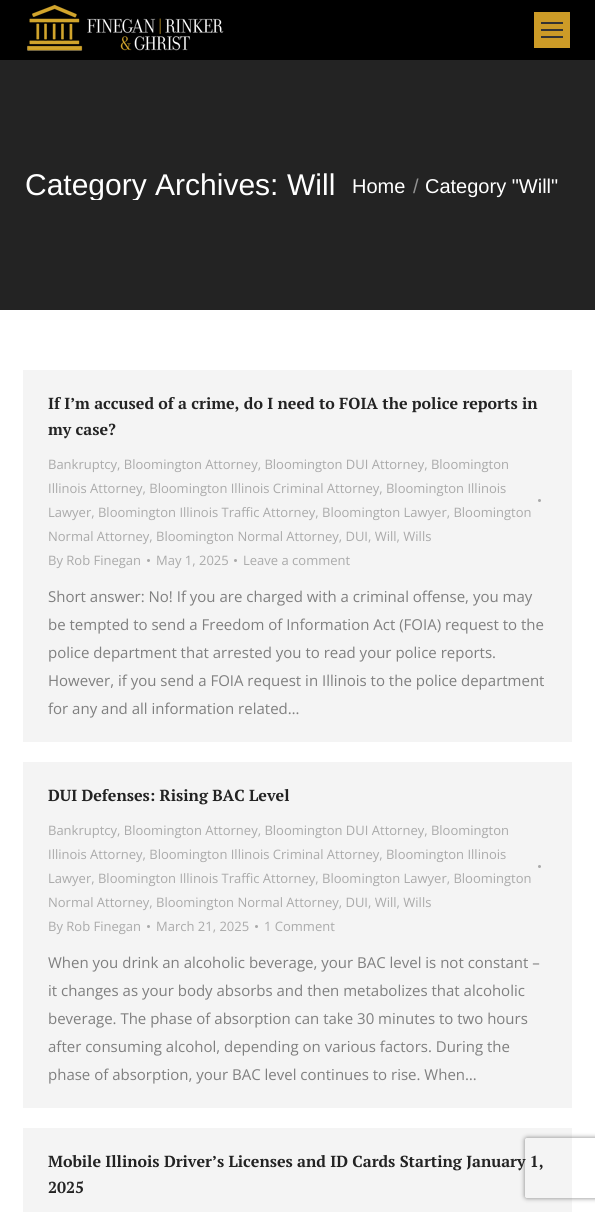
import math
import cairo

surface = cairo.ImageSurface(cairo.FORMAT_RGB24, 595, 1212)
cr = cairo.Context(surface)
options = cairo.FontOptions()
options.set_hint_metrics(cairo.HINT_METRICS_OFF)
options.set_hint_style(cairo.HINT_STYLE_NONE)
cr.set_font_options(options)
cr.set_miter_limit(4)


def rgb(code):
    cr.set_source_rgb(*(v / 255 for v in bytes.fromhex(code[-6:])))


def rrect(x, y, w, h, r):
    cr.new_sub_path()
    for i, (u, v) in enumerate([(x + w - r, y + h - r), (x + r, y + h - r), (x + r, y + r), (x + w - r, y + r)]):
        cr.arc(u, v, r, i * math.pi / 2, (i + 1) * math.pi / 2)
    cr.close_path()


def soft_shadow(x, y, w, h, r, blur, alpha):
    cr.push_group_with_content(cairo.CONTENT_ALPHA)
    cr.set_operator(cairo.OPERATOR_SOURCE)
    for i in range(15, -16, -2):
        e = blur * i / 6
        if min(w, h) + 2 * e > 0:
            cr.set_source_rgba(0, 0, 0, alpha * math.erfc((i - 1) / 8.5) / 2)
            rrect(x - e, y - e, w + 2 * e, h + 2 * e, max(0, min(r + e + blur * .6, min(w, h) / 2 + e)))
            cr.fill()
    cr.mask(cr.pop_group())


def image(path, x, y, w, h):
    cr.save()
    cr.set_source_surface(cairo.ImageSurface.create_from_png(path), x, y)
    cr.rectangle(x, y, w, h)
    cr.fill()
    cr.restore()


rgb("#ffffff")
cr.paint()
rgb("#000000")
cr.rectangle(0, 0, 595, 60)
cr.fill()
image("img/1.png", 27, 4, 197, 47)
for x, y, w, h, color in [
    (534, 12, 36, 36, "#cc9b27"),
    (541, 22, 22, 2, "#333333"),
    (541, 29, 22, 2, "#333333"),
    (541, 36, 22, 2, "#333333"),
    (0, 60, 595, 250, "#232323"),
    (23, 370, 549, 372, "#f4f4f4"),
]:
    rgb(color)
    cr.rectangle(x, y, w, h)
    cr.fill()
rgb("#aaaaaa")
cr.arc(539.5, 500.5, 1.5, 0, 2 * math.pi)
cr.fill()
cr.arc(148.5, 560.5, 1.5, 0, 2 * math.pi)
cr.fill()
cr.arc(235.5, 560.5, 1.5, 0, 2 * math.pi)
cr.fill()
rgb("#f4f4f4")
cr.rectangle(23, 762, 549, 346)
cr.fill()
rgb("#aaaaaa")
cr.arc(539.5, 866.5, 1.5, 0, 2 * math.pi)
cr.fill()
cr.arc(148.5, 926.5, 1.5, 0, 2 * math.pi)
cr.fill()
cr.arc(256.5, 926.5, 1.5, 0, 2 * math.pi)
cr.fill()
rgb("#f4f4f4")
cr.rectangle(23, 1128, 549, 84)
cr.fill()
cr.save()
cr.set_fill_rule(cairo.FILL_RULE_EVEN_ODD)
cr.new_path()
cr.move_to(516, 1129)
cr.line_to(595, 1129)
cr.line_to(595, 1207)
cr.line_to(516, 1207)
cr.close_path()
cr.move_to(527, 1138)
cr.line_to(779, 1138)
cr.curve_to(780, 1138, 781, 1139, 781, 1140)
cr.line_to(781, 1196)
cr.curve_to(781, 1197, 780, 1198, 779, 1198)
cr.line_to(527, 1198)
cr.curve_to(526, 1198, 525, 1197, 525, 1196)
cr.line_to(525, 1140)
cr.curve_to(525, 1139, 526, 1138, 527, 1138)
cr.close_path()
cr.clip()
rgb("#808080")
soft_shadow(525, 1138, 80, 60, 2, 2.5, 1)
cr.restore()
cr.save()
cr.rectangle(25, 170, 310, 30)
cr.clip()
cr.select_font_face("Liberation Sans")
cr.set_font_size(30)
rgb("#ffffff")
cr.move_to(25, 195)
cr.show_text("Category Archives:")
cr.restore()
cr.select_font_face("Liberation Sans")
cr.set_font_size(30)
rgb("#ffffff")
cr.move_to(287, 195)
cr.show_text("Will")
cr.set_font_size(20)
cr.move_to(352, 193)
cr.show_text("Home")
rgb("#919191")
cr.move_to(413, 193)
cr.show_text("/")
rgb("#ffffff")
cr.move_to(425, 193)
cr.show_text("Category \"Will\"")
cr.select_font_face("PT Serif", cairo.FONT_SLANT_NORMAL, cairo.FONT_WEIGHT_BOLD)
cr.set_font_size(16)
rgb("#232323")
cr.move_to(48, 409)
cr.show_text("If I’m accused of a crime, do I need to FOIA the police reports in")
cr.move_to(48, 435)
cr.show_text("my case?")
cr.select_font_face("Open Sans")
cr.set_font_size(13)
rgb("#aaaaaa")
for x, y, s in [
    (48, 469, "Bankruptcy, Bloomington Attorney, Bloomington DUI Attorney, Bloomington"),
    (48, 493, "Illinois Attorney, Bloomington Illinois Criminal Attorney, Bloomington Illinois"),
    (48, 517, "Lawyer, Bloomington Illinois Traffic Attorney, Bloomington Lawyer, Bloomington"),
    (48, 541, "Normal Attorney, Bloomington Normal Attorney, DUI, Will, Wills"),
    (48, 565, "By Rob Finegan"),
    (156, 565, "May 1, 2025"),
    (243, 565, "Leave a comment"),
]:
    cr.move_to(x, y)
    cr.show_text(s)
cr.set_font_size(15)
rgb("#7f7f7f")
for x, y, s in [
    (48, 602, "Short answer: No! If you are charged with a criminal offense, you may"),
    (48, 630, "be tempted to send a Freedom of Information Act (FOIA) request to the"),
    (48, 658, "police department that arrested you to read your police reports."),
    (48, 686, "However, if you send a FOIA request in Illinois to the police department"),
    (48, 714, "for any and all information related…"),
]:
    cr.move_to(x, y)
    cr.show_text(s)
cr.select_font_face("PT Serif", cairo.FONT_SLANT_NORMAL, cairo.FONT_WEIGHT_BOLD)
cr.set_font_size(16)
rgb("#232323")
cr.move_to(48, 801)
cr.show_text("DUI Defenses: Rising BAC Level")
cr.select_font_face("Open Sans")
cr.set_font_size(13)
rgb("#aaaaaa")
for x, y, s in [
    (48, 835, "Bankruptcy, Bloomington Attorney, Bloomington DUI Attorney, Bloomington"),
    (48, 859, "Illinois Attorney, Bloomington Illinois Criminal Attorney, Bloomington Illinois"),
    (48, 883, "Lawyer, Bloomington Illinois Traffic Attorney, Bloomington Lawyer, Bloomington"),
    (48, 907, "Normal Attorney, Bloomington Normal Attorney, DUI, Will, Wills"),
    (48, 931, "By Rob Finegan"),
    (156, 931, "March 21, 2025"),
    (264, 931, "1 Comment"),
]:
    cr.move_to(x, y)
    cr.show_text(s)
cr.set_font_size(15)
rgb("#7f7f7f")
for x, y, s in [
    (48, 968, "When you drink an alcoholic beverage, your BAC level is not constant –"),
    (48, 996, "it changes as your body absorbs and then metabolizes that alcoholic"),
    (48, 1024, "beverage. The phase of absorption can take 30 minutes to two hours"),
    (48, 1052, "after consuming alcohol, depending on various factors. During the"),
    (48, 1080, "phase of absorption, your BAC level continues to rise. When…"),
]:
    cr.move_to(x, y)
    cr.show_text(s)
cr.select_font_face("PT Serif", cairo.FONT_SLANT_NORMAL, cairo.FONT_WEIGHT_BOLD)
cr.set_font_size(16)
rgb("#232323")
cr.move_to(48, 1167)
cr.show_text("Mobile Illinois Driver’s Licenses and ID Cards Starting January 1,")
cr.move_to(48, 1193)
cr.show_text("2025")
surface.write_to_png("page.png")
